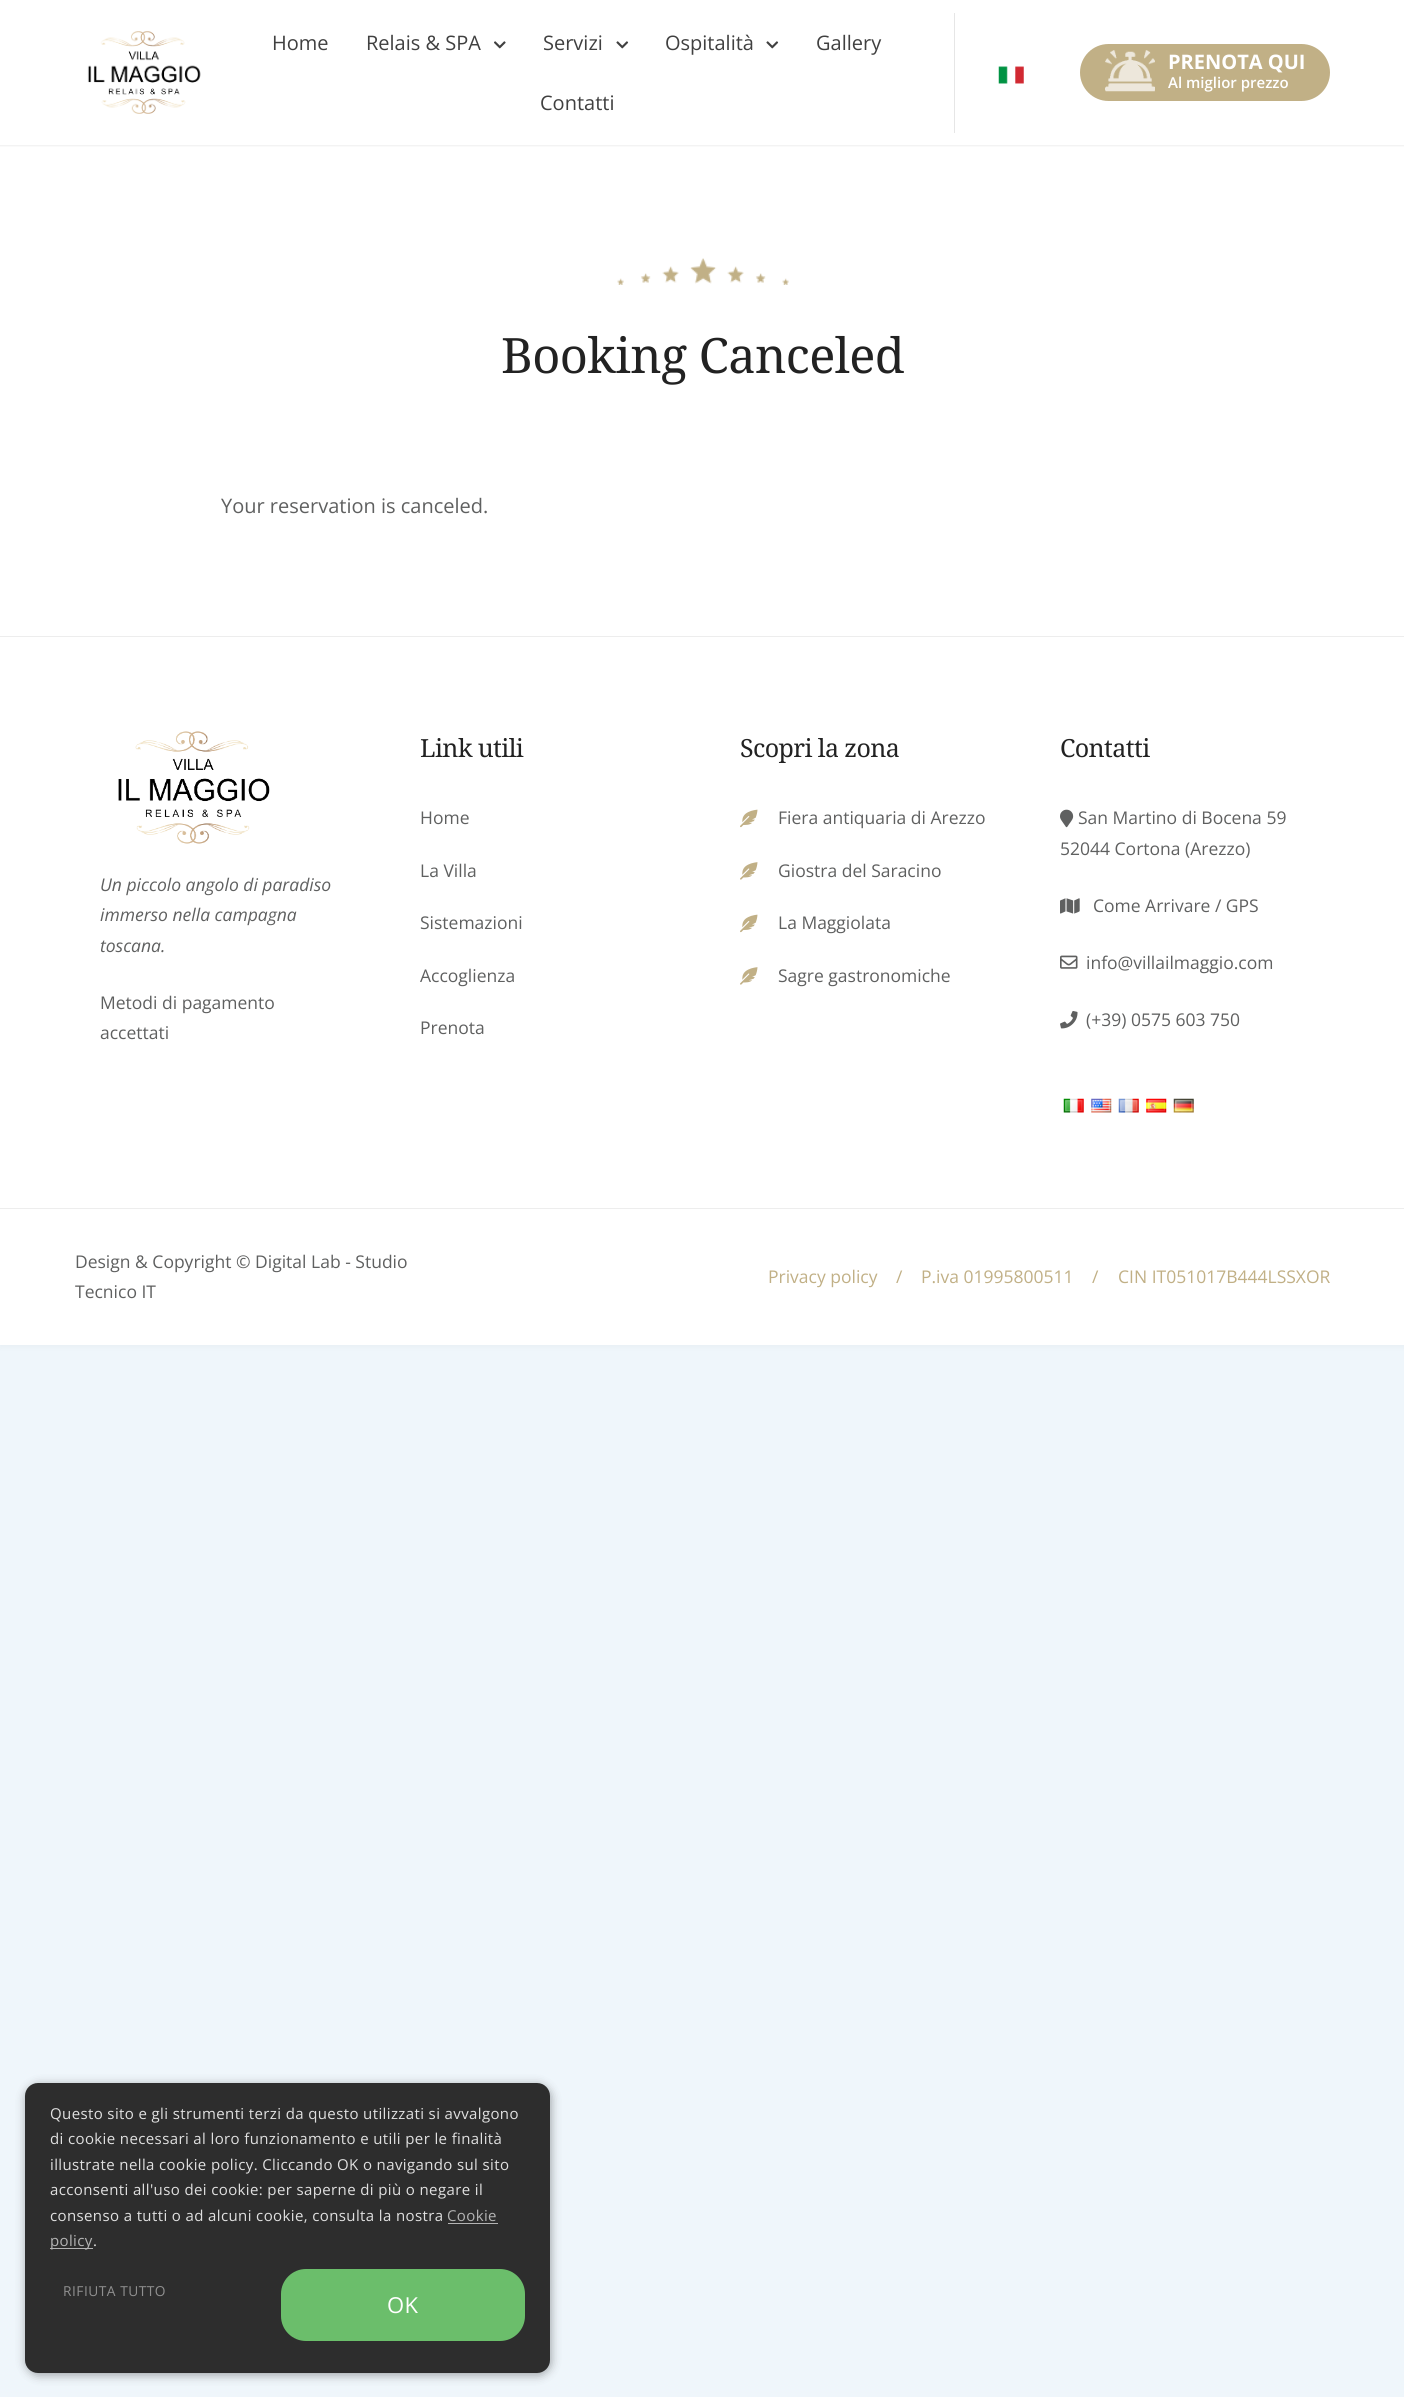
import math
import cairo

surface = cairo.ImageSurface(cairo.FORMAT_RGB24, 1404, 2397)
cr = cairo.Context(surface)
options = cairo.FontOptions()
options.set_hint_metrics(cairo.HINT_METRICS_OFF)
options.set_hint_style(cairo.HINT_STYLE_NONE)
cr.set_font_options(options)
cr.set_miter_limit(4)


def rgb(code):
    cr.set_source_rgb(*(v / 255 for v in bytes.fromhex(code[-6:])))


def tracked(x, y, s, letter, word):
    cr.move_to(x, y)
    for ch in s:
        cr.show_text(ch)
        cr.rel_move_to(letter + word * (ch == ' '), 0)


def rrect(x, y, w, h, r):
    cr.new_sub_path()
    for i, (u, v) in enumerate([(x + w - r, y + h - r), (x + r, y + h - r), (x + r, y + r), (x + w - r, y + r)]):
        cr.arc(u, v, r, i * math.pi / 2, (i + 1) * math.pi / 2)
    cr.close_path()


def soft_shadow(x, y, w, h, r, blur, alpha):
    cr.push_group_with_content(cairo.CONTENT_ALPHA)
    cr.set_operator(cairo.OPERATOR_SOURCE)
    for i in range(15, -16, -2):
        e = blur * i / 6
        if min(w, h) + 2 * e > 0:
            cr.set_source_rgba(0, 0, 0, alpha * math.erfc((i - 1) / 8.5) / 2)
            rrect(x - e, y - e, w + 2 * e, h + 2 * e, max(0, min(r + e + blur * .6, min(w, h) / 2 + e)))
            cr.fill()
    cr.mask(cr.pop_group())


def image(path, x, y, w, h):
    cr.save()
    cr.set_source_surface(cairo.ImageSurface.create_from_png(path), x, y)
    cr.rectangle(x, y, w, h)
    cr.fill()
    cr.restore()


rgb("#eff6fb")
cr.paint()
rgb("#000000")
soft_shadow(0, 0, 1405, 1345, 0, 4, 0.05)
rgb("#ffffff")
cr.rectangle(0, 0, 1404, 1345)
cr.fill()
cr.save()
cr.rectangle(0, 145, 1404, 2)
cr.clip()
rgb("#505050")
soft_shadow(0, 1, 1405, 145, 0, 1, 0.1)
cr.restore()
image("img/1.png", 87, 31, 114, 83)
rgb("#e6e6e6")
cr.rectangle(954, 13, 1, 120)
cr.fill()
image("img/2.png", 494, 41, 12, 8)
image("img/3.png", 616, 41, 13, 8)
image("img/3.png", 766, 41, 13, 8)
image("img/4.png", 998, 66, 26, 18)
rgb("#c1b086")
rrect(1080, 44, 250, 57, 28.5)
cr.fill()
image("img/5.png", 1105, 50, 50, 42)
image("img/6.png", 617, 258, 172, 27)
rgb("#ededed")
cr.rectangle(0, 636, 1404, 1)
cr.fill()
image("img/7.png", 118, 731, 152, 113)
image("img/8.png", 740, 809, 18, 19)
image("img/9.png", 740, 862, 18, 18)
image("img/8.png", 740, 914, 18, 19)
image("img/9.png", 740, 967, 18, 18)
image("img/10.png", 1060, 809, 14, 19)
image("img/11.png", 1060, 898, 20, 16)
image("img/12.png", 1060, 955, 18, 14)
image("img/13.png", 1060, 1011, 18, 18)
image("img/14.png", 1063, 1098, 21, 15)
image("img/15.png", 1091, 1098, 21, 15)
image("img/16.png", 1118, 1098, 21, 15)
image("img/17.png", 1146, 1098, 21, 15)
image("img/18.png", 1173, 1098, 21, 15)
cr.rectangle(0, 1208, 1404, 1)
cr.fill()
rgb("#000000")
soft_shadow(26, 2085, 525, 290, 13, 5, 0.35)
rgb("#2d2d2d")
rrect(25, 2083, 525, 290, 13)
cr.fill()
rgb("#b4b4b4")
cr.rectangle(448, 2223, 50, 1)
cr.fill()
cr.rectangle(50, 2248, 43, 1)
cr.fill()
rgb("#6bbe6b")
rrect(281, 2269, 244, 72, 25)
cr.fill()
cr.select_font_face("Open Sans")
cr.set_font_size(20)
rgb("#404040")
for x, y, s in [
    (272, 50, "Home"),
    (366, 50, "Relais & SPA"),
    (543, 50, "Servizi"),
    (665, 50, "Ospitalità"),
    (816, 50, "Gallery"),
    (540, 110, "Contatti"),
]:
    cr.move_to(x, y)
    cr.show_text(s)
cr.select_font_face("Open Sans", cairo.FONT_SLANT_NORMAL, cairo.FONT_WEIGHT_BOLD)
rgb("#ffffff")
cr.move_to(1168, 69)
cr.show_text("PRENOTA QUI")
cr.select_font_face("Open Sans SemiBold")
cr.set_font_size(15)
cr.move_to(1168, 88)
cr.show_text("Al miglior prezzo")
cr.select_font_face("Noto Serif")
cr.set_font_size(48.75)
rgb("#222222")
tracked(501, 373, "Booking Canceled", -0.6, 0)
cr.select_font_face("Open Sans")
cr.set_font_size(20)
rgb("#5f6060")
cr.move_to(221, 513)
cr.show_text("Your reservation is canceled.")
cr.select_font_face("Open Sans", cairo.FONT_SLANT_ITALIC)
cr.set_font_size(17.5)
for x, y, s in [
    (100, 891, "Un piccolo angolo di paradiso"),
    (100, 921, "immerso nella campagna"),
    (100, 952, "toscana."),
]:
    cr.move_to(x, y)
    cr.show_text(s)
cr.select_font_face("Open Sans")
cr.move_to(100, 1009)
cr.show_text("Metodi di pagamento")
cr.move_to(100, 1039)
cr.show_text("accettati")
cr.select_font_face("Noto Serif")
cr.set_font_size(25)
rgb("#222222")
tracked(420, 757, "Link utili", -0.6, 0)
cr.select_font_face("Open Sans")
cr.set_font_size(17.5)
rgb("#5f6060")
for x, y, s in [
    (420, 824, "Home"),
    (420, 877, "La Villa"),
    (420, 929, "Sistemazioni"),
    (420, 982, "Accoglienza"),
    (420, 1034, "Prenota"),
]:
    cr.move_to(x, y)
    cr.show_text(s)
cr.select_font_face("Noto Serif")
cr.set_font_size(25)
rgb("#222222")
tracked(740, 757, "Scopri la zona", -0.6, 0)
cr.select_font_face("Open Sans")
cr.set_font_size(17.5)
rgb("#5f6060")
for x, y, s in [
    (778, 824, "Fiera antiquaria di Arezzo"),
    (778, 877, "Giostra del Saracino"),
    (778, 929, "La Maggiolata"),
    (778, 982, "Sagre gastronomiche"),
]:
    cr.move_to(x, y)
    cr.show_text(s)
cr.select_font_face("Noto Serif")
cr.set_font_size(25)
rgb("#222222")
tracked(1060, 757, "Contatti", -0.6, 0)
cr.select_font_face("Open Sans")
cr.set_font_size(17.5)
rgb("#5f6060")
for x, y, s in [
    (1078, 824, "San Martino di Bocena 59"),
    (1060, 855, "52044 Cortona (Arezzo)"),
    (1093, 912, "Come Arrivare / GPS"),
    (1086, 969, "info@villailmaggio.com"),
    (1086, 1026, "(+39) 0575 603 750"),
    (75, 1268, "Design & Copyright © Digital Lab - Studio"),
    (75, 1298, "Tecnico IT"),
]:
    cr.move_to(x, y)
    cr.show_text(s)
rgb("#c1b086")
for x, y, s in [
    (768, 1283, "Privacy policy"),
    (896, 1283, "/"),
    (921, 1283, "P.iva 01995800511"),
    (1092, 1283, "/"),
    (1118, 1283, "CIN IT051017B444LSSXOR"),
]:
    cr.move_to(x, y)
    cr.show_text(s)
cr.set_font_size(15)
rgb("#e0e0e0")
for x, y, s in [
    (50, 2119, "Questo sito e gli strumenti terzi da questo utilizzati si avvalgono"),
    (50, 2144, "di cookie necessari al loro funzionamento e utili per le finalità"),
    (50, 2170, "illustrate nella cookie policy. Cliccando OK o navigando sul sito"),
    (50, 2195, "acconsenti all'uso dei cookie: per saperne di più o negare il"),
    (50, 2221, "consenso a tutti o ad alcuni cookie, consulta la nostra"),
]:
    tracked(x, y, s, 0.38, 0)
rgb("#b4b4b4")
tracked(447, 2221, "Cookie", 0.38, 0)
tracked(50, 2246, "policy", 0.38, 0)
rgb("#e0e0e0")
tracked(93, 2246, ".", 0.38, 0)
cr.set_font_size(13.75)
rgb("#909090")
tracked(63, 2296, "RIFIUTA TUTTO", 0.5, 0)
cr.set_font_size(22)
rgb("#ffffff")
tracked(387, 2313, "OK", 0.5, 0)
surface.write_to_png("page.png")
